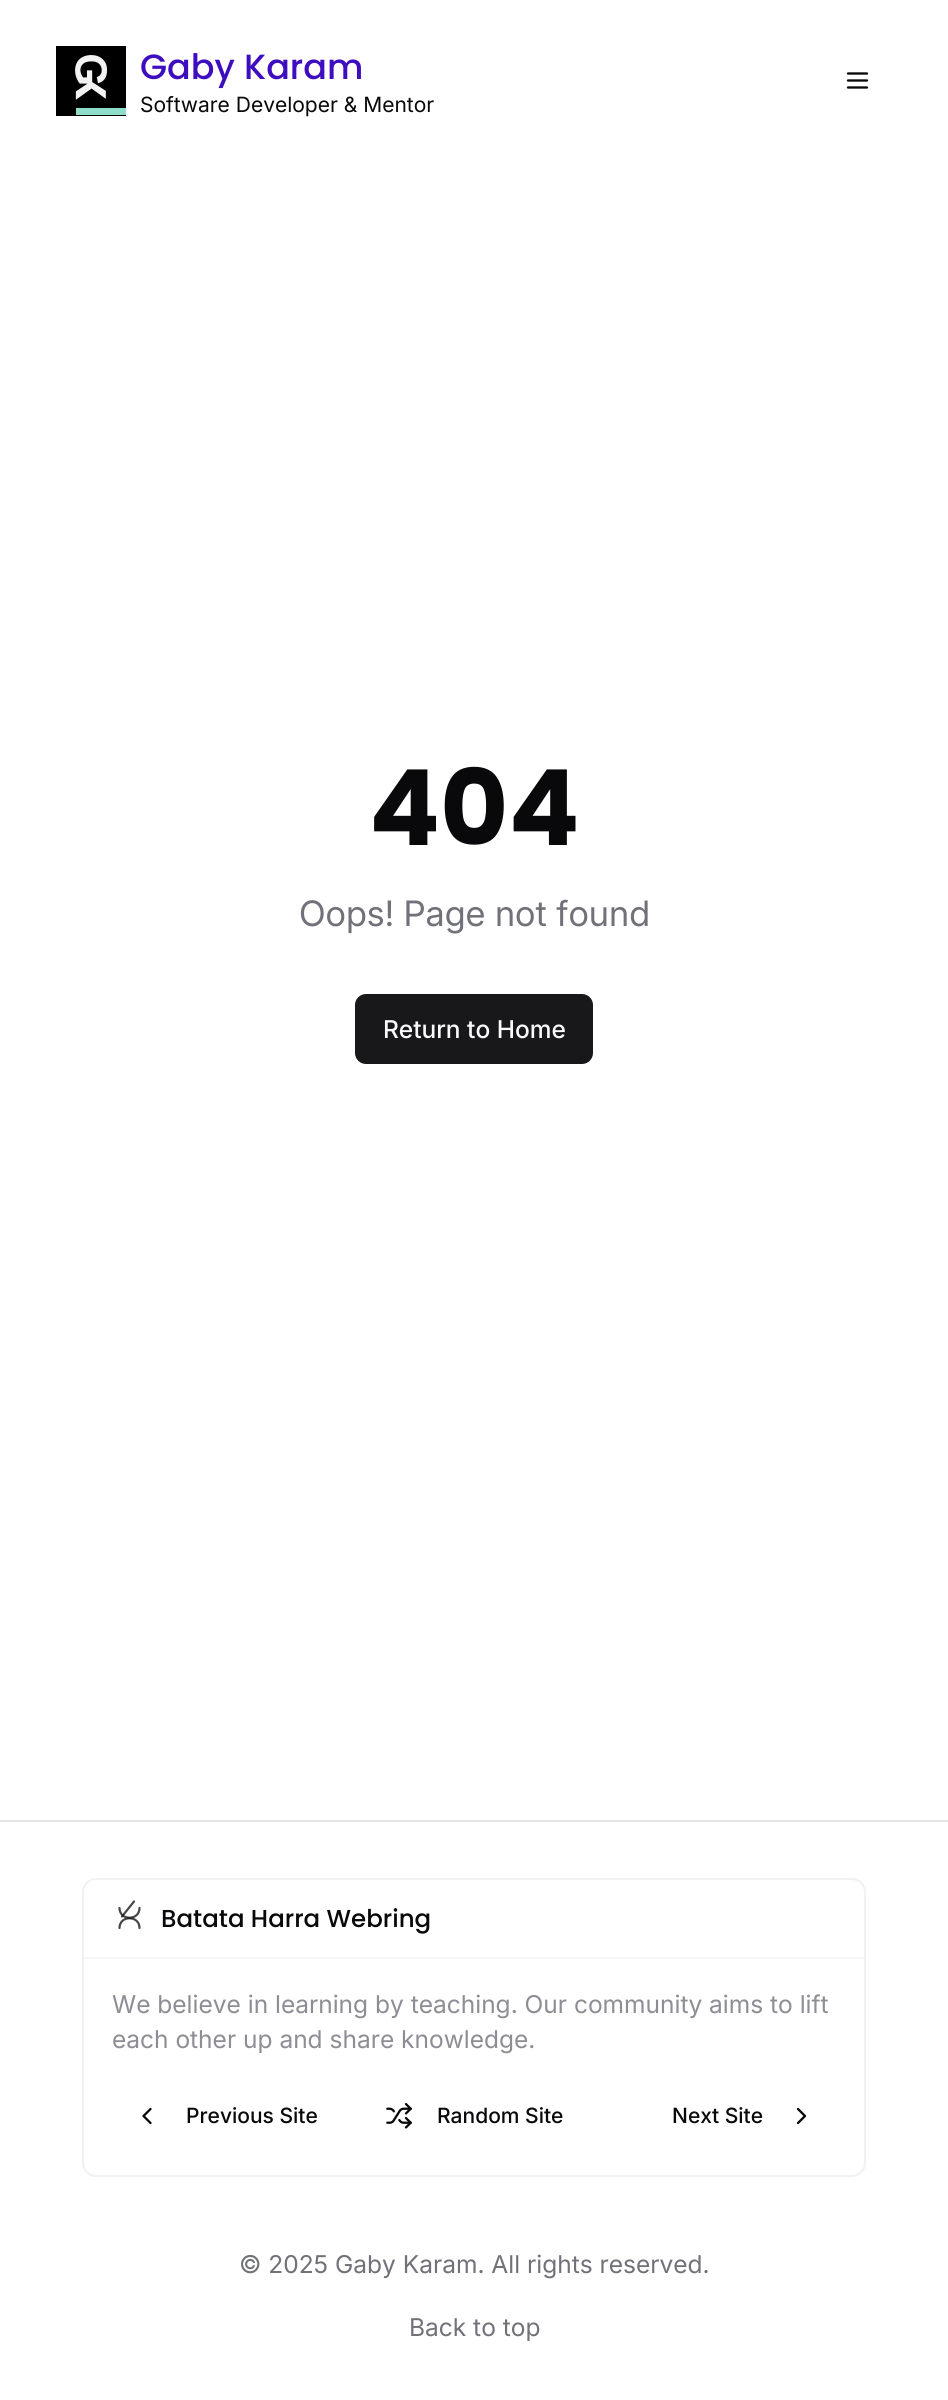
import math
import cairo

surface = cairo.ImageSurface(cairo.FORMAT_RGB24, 948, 2400)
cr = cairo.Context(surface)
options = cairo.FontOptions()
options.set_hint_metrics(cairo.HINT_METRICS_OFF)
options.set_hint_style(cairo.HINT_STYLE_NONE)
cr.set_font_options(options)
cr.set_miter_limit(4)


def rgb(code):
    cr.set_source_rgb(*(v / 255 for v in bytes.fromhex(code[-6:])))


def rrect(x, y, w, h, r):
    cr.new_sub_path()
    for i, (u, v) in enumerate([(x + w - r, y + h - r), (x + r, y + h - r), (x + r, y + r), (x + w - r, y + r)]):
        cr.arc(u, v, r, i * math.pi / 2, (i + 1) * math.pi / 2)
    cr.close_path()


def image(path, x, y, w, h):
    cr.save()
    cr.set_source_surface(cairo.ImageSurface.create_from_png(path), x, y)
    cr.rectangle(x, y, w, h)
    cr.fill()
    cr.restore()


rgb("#ffffff")
cr.paint()
image("img/1.png", 56, 46, 70, 70)
cr.new_path()
cr.move_to(848, 80.5)
cr.line_to(867, 80.5)
cr.move_to(848, 73.5)
cr.line_to(867, 73.5)
cr.move_to(848, 87.5)
cr.line_to(867, 87.5)
rgb("#09090b")
cr.set_line_width(2.3)
cr.set_line_cap(cairo.LINE_CAP_ROUND)
cr.set_line_join(cairo.LINE_JOIN_ROUND)
cr.stroke()
rgb("#18181b")
rrect(355, 994, 238, 70, 11)
cr.fill()
rgb("#e4e4e7")
cr.rectangle(0, 1820, 948, 2)
cr.fill()
rrect(83, 1879, 782, 297, 13)
cr.set_source_rgba(0.894, 0.894, 0.906, 0.5)
cr.set_line_width(2)
cr.set_line_cap(cairo.LINE_CAP_BUTT)
cr.set_line_join(cairo.LINE_JOIN_MITER)
cr.stroke()
cr.set_source_rgba(0.894, 0.894, 0.906, 0.3)
cr.rectangle(84, 1957, 781, 2)
cr.fill()
cr.new_path()
cr.move_to(122, 1916.5)
cr.line_to(134, 1901.5)
rgb("#464649")
cr.set_line_width(2.2)
cr.set_line_cap(cairo.LINE_CAP_ROUND)
cr.set_line_join(cairo.LINE_JOIN_ROUND)
cr.stroke()
cr.new_path()
cr.move_to(139.5, 1908)
cr.curve_to(139.5, 1921, 119.5, 1921, 119.5, 1908)
cr.set_source_rgba(0.094, 0.094, 0.106, 0.8)
cr.stroke()
cr.new_path()
cr.move_to(139.5, 1928)
cr.curve_to(139.5, 1915, 119.5, 1915, 119.5, 1928)
cr.stroke()
cr.new_path()
cr.move_to(150.5, 2123)
cr.line_to(143.5, 2116)
cr.line_to(150.5, 2109)
rgb("#09090b")
cr.set_line_width(2.3)
cr.stroke()
image("img/2.png", 386, 2103, 26, 26)
cr.new_path()
cr.move_to(798, 2123)
cr.line_to(805, 2116)
cr.line_to(798, 2109)
cr.stroke()
cr.select_font_face("Poppins Medium")
cr.set_font_size(35)
rgb("#3d0dbf")
cr.move_to(140, 79)
cr.show_text("Gaby Karam")
cr.select_font_face("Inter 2")
cr.set_font_size(21)
rgb("#09090b")
cr.move_to(140, 112)
cr.show_text("Software Developer & Mentor")
cr.select_font_face("Poppins", cairo.FONT_SLANT_NORMAL, cairo.FONT_WEIGHT_BOLD)
cr.set_font_size(105)
cr.move_to(369, 845)
cr.show_text("404")
cr.select_font_face("Inter")
cr.set_font_size(35)
rgb("#71717a")
cr.move_to(299, 926)
cr.show_text("Oops! Page not found")
cr.select_font_face("Inter Medium")
cr.set_font_size(24.5)
rgb("#fafafa")
cr.move_to(383, 1038)
cr.show_text("Return to Home")
cr.select_font_face("Poppins Medium")
rgb("#09090b")
cr.move_to(161, 1927)
cr.show_text("Batata Harra Webring")
cr.select_font_face("Inter 2")
rgb("#8d8d95")
cr.move_to(112, 2013)
cr.show_text("We believe in learning by teaching. Our community aims to lift")
cr.move_to(112, 2048)
cr.show_text("each other up and share knowledge.")
cr.select_font_face("Inter Medium")
cr.set_font_size(21)
rgb("#09090b")
for x, y, s in [
    (186, 2123, "Previous Site"),
    (437, 2123, "Random Site"),
    (672, 2123, "Next Site"),
]:
    cr.move_to(x, y)
    cr.show_text(s)
cr.select_font_face("Inter 2")
cr.set_font_size(24.5)
rgb("#71717a")
cr.move_to(239, 2273)
cr.show_text("© 2025 Gaby Karam. All rights reserved.")
cr.move_to(409, 2336)
cr.show_text("Back to top")
surface.write_to_png("page.png")
